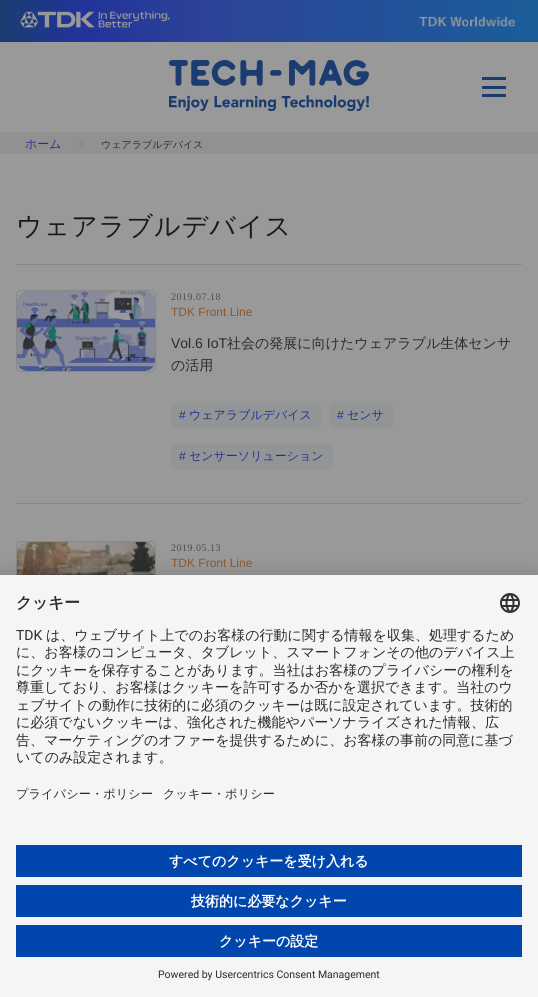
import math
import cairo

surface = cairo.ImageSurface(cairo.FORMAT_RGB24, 538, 997)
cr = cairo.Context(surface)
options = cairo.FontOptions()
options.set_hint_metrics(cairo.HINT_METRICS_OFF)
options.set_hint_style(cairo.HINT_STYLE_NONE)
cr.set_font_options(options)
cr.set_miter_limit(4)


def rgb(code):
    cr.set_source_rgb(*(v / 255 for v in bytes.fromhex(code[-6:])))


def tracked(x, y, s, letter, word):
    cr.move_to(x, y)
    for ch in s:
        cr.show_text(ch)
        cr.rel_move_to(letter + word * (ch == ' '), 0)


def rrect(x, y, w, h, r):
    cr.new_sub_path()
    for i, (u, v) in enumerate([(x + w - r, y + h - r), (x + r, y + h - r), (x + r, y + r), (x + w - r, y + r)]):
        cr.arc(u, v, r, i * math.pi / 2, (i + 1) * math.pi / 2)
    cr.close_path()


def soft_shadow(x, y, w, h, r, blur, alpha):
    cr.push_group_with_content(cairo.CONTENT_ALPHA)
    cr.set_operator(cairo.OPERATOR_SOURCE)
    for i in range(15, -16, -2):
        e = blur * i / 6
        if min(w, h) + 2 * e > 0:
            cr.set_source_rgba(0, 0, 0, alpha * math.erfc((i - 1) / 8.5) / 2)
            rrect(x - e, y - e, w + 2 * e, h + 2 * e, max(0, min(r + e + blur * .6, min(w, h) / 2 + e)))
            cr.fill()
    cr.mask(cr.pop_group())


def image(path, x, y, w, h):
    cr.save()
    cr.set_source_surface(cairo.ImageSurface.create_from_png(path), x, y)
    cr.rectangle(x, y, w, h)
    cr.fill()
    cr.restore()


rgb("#999999")
cr.paint()
gradient = cairo.LinearGradient(0, 21, 538, 21)
gradient.add_color_stop_rgba(0, 0.102, 0.239, 0.439, 1)
gradient.add_color_stop_rgba(0.15, 0.133, 0.2, 0.6, 1)
gradient.add_color_stop_rgba(0.4, 0.176, 0.267, 0.596, 1)
gradient.add_color_stop_rgba(1, 0.102, 0.365, 0.6, 1)
cr.set_source(gradient)
cr.rectangle(0, 0, 538, 42)
cr.fill()
image("img/1.png", 20, 11, 150, 17)
image("img/2.png", 419, 16, 97, 12)
image("img/3.png", 169, 60, 200, 51)
for x, y, w, h, color in [
    (482, 77, 24, 3, "#1a3d70"),
    (482, 86, 24, 3, "#1a3d70"),
    (482, 94, 24, 3, "#1a3d70"),
    (0, 132, 538, 22, "#919191"),
]:
    rgb(color)
    cr.rectangle(x, y, w, h)
    cr.fill()
rgb("#808080")
cr.new_path()
cr.move_to(80, 140)
cr.line_to(83.5, 143.5)
cr.line_to(83, 144)
cr.line_to(79.5, 140.5)
cr.close_path()
cr.fill()
cr.new_path()
cr.move_to(83, 143)
cr.line_to(83.5, 143.5)
cr.line_to(80, 147)
cr.line_to(79.5, 146.5)
cr.close_path()
cr.fill()
rgb("#888888")
cr.rectangle(16, 264, 506, 1)
cr.fill()
cr.rectangle(16, 503, 506, 1)
cr.fill()
rrect(16.5, 290.5, 139, 81, 4.5)
cr.set_line_width(1)
cr.stroke()
image("img/4.png", 17, 291, 138, 80)
rgb("#929595")
rrect(171, 403, 150, 25, 5)
cr.fill()
rrect(329, 403, 65, 25, 5)
cr.fill()
rrect(171, 444, 162, 26, 5)
cr.fill()
rrect(16.5, 541.5, 139, 81, 4.5)
rgb("#888888")
cr.stroke()
image("img/5.png", 17, 542, 138, 33)
rgb("#000000")
soft_shadow(0, 595, 538, 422, 0, 14, 0.3)
soft_shadow(0, 580, 538, 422, 0, 13, 0.22)
rgb("#f5f5f5")
cr.rectangle(0, 575, 538, 422)
cr.fill()
image("img/6.png", 500, 593, 20, 20)
for x, y, w, h, color in [
    (16, 845, 506, 32, "#0046ad"),
    (16, 885, 506, 32, "#0046ad"),
    (16, 925, 506, 32, "#0046ad"),
]:
    rgb(color)
    cr.rectangle(x, y, w, h)
    cr.fill()
cr.select_font_face("WenQuanYi Zen Hei Medium")
cr.set_font_size(12)
rgb("#282d96")
cr.move_to(25, 148)
cr.show_text("ホーム")
cr.set_font_size(10)
rgb("#2b2b2b")
cr.move_to(101, 148)
cr.show_text("ウェアラブルデバイス")
cr.set_font_size(26)
rgb("#1a1a1a")
tracked(16, 235, "ウェアラブルデバイス", 1, 0)
cr.select_font_face("Liberation Serif")
cr.set_font_size(10)
rgb("#4d4d4d")
tracked(171, 300, "2019.07.18", 0.5, 0)
cr.select_font_face("Liberation Sans")
cr.set_font_size(12)
rgb("#8c5729")
cr.move_to(171, 316)
cr.show_text("TDK Front Line")
cr.set_font_size(14)
rgb("#2b2b2b")
cr.move_to(171, 348)
cr.show_text("Vol.6 IoT")
cr.select_font_face("WenQuanYi Zen Hei Medium")
cr.move_to(227, 348)
cr.show_text("社会の発展に向けたウェアラブル生体センサ")
cr.move_to(171, 370)
cr.show_text("の活用")
cr.select_font_face("Liberation Sans")
cr.set_font_size(12)
rgb("#282d96")
cr.move_to(179, 419)
cr.show_text("#")
cr.select_font_face("WenQuanYi Zen Hei Medium")
cr.move_to(189, 419)
cr.show_text("ウェアラブルデバイス")
cr.select_font_face("Liberation Sans")
cr.move_to(337, 419)
cr.show_text("#")
cr.select_font_face("WenQuanYi Zen Hei Medium")
cr.move_to(347, 419)
cr.show_text("センサ")
cr.select_font_face("Liberation Sans")
cr.move_to(179, 460)
cr.show_text("#")
cr.select_font_face("WenQuanYi Zen Hei Medium")
cr.move_to(189, 460)
cr.show_text("センサーソリューション")
cr.select_font_face("Liberation Serif")
cr.set_font_size(10)
rgb("#4d4d4d")
tracked(171, 551, "2019.05.13", 0.5, 0)
cr.select_font_face("Liberation Sans")
cr.set_font_size(12)
rgb("#8c5729")
cr.move_to(171, 567)
cr.show_text("TDK Front Line")
cr.select_font_face("WenQuanYi Zen Hei", cairo.FONT_SLANT_NORMAL, cairo.FONT_WEIGHT_BOLD)
cr.set_font_size(15.75)
rgb("#2b2b2b")
cr.move_to(16, 608)
cr.show_text("クッキー")
cr.select_font_face("Roboto")
cr.set_font_size(14)
cr.move_to(16, 640)
cr.show_text("TDK")
cr.select_font_face("WenQuanYi Zen Hei Medium")
for x, y, s in [
    (46, 640, "は、ウェブサイト上でのお客様の行動に関する情報を収集、処理するため"),
    (16, 657, "に、お客様のコンピュータ、タブレット、スマートフォンその他のデバイス上"),
    (16, 675, "にクッキーを保存することがあります。当社はお客様のプライバシーの権利を"),
    (16, 692, "尊重しており、お客様はクッキーを許可するか否かを選択できます。当社のウ"),
    (16, 710, "ェブサイトの動作に技術的に必須のクッキーは既に設定されています。技術的"),
    (16, 727, "に必須でないクッキーは、強化された機能やパーソナライズされた情報、広"),
    (16, 745, "告、マーケティングのオファーを提供するために、お客様の事前の同意に基づ"),
    (16, 762, "いてのみ設定されます。"),
]:
    cr.move_to(x, y)
    cr.show_text(s)
cr.set_font_size(12.25)
cr.move_to(16, 798)
cr.show_text("プライバシー・ポリシー")
cr.move_to(163, 798)
cr.show_text("クッキー・ポリシー")
cr.select_font_face("WenQuanYi Zen Hei", cairo.FONT_SLANT_NORMAL, cairo.FONT_WEIGHT_BOLD)
cr.set_font_size(14)
rgb("#ffffff")
for x, y, s in [
    (169, 866, "すべてのクッキーを受け入れる"),
    (191, 906, "技術的に必要なクッキー"),
    (219, 946, "クッキーの設定"),
]:
    cr.move_to(x, y)
    cr.show_text(s)
cr.select_font_face("Roboto")
cr.set_font_size(10.5)
rgb("#2b2b2b")
cr.move_to(158, 978)
cr.show_text("Powered by Usercentrics Consent Management")
surface.write_to_png("page.png")
